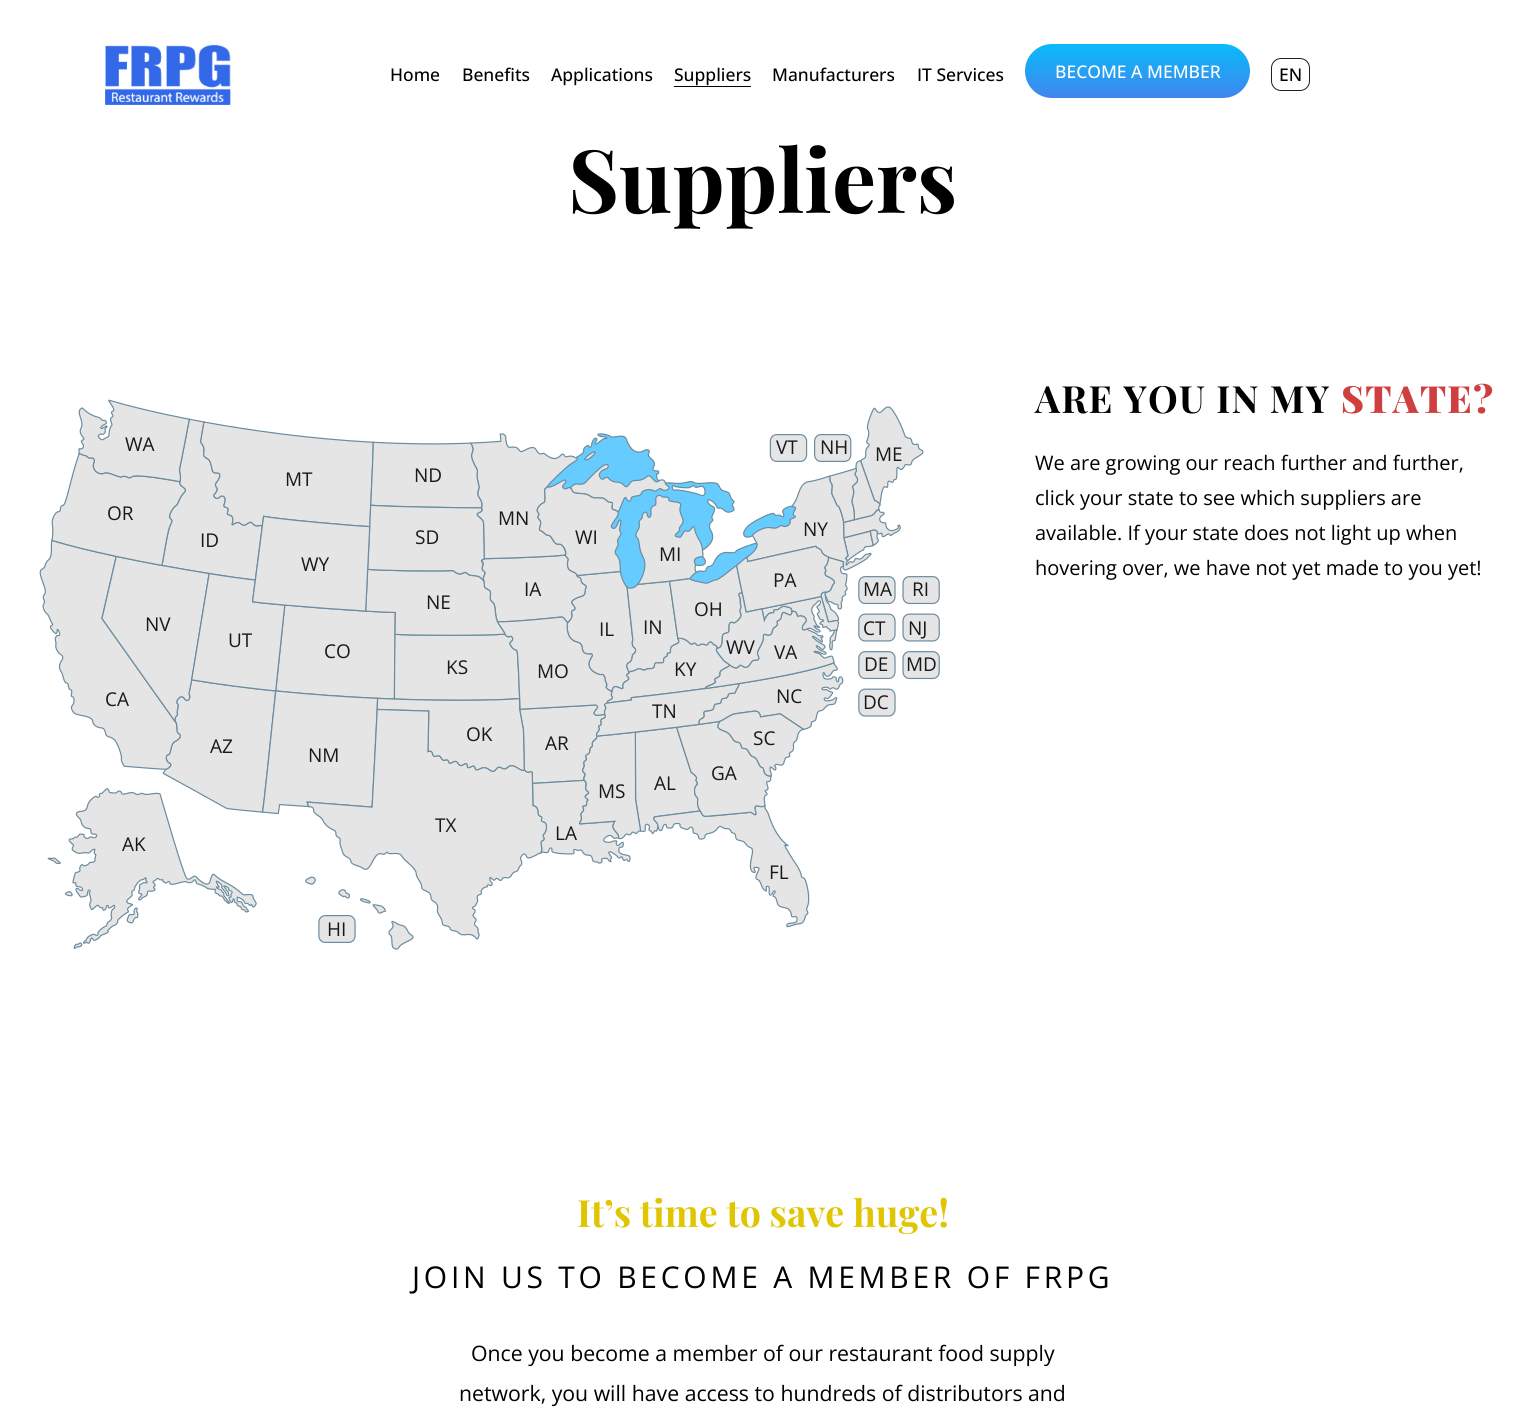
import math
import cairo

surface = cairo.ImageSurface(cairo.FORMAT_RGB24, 1524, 1414)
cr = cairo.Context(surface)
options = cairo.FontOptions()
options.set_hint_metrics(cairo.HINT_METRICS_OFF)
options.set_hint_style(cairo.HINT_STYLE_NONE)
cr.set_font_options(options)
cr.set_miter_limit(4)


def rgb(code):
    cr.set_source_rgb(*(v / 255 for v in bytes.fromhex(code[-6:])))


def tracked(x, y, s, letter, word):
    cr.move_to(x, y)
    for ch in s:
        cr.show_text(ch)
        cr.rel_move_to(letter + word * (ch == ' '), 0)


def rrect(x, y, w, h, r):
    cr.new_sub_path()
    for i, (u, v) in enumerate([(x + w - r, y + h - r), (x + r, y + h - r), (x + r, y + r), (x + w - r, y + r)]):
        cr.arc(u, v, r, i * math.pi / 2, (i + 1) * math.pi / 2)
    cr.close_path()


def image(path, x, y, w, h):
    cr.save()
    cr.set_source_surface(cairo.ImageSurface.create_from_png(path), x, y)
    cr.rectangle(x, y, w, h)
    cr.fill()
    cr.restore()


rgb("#ffffff")
cr.paint()
image("img/1.png", 105, 44, 126, 61)
rgb("#000000")
cr.rectangle(674, 86, 77, 1)
cr.fill()
gradient = cairo.LinearGradient(1138, 44, 1138, 98)
gradient.add_color_stop_rgba(0, 0.035, 0.733, 0.984, 1)
gradient.add_color_stop_rgba(1, 0.255, 0.522, 0.925, 1)
cr.set_source(gradient)
rrect(1025, 44, 225, 54, 27)
cr.fill()
rrect(1271.5, 58.5, 38, 32, 9.5)
rgb("#1e1e1e")
cr.set_line_width(1)
cr.stroke()
image("img/2.png", 39, 399, 901, 551)
cr.select_font_face("Open Sans Medium")
cr.set_font_size(17.5)
rgb("#000000")
for x, y, s in [
    (390, 81, "Home"),
    (462, 81, "Benefits"),
    (551, 81, "Applications"),
    (674, 81, "Suppliers"),
    (772, 81, "Manufacturers"),
    (917, 81, "IT Services"),
]:
    cr.move_to(x, y)
    cr.show_text(s)
rgb("#ffffff")
cr.move_to(1055, 78)
cr.show_text("BECOME A MEMBER")
rgb("#000000")
cr.move_to(1279, 81)
cr.show_text("EN")
cr.select_font_face("Playfair Display", cairo.FONT_SLANT_NORMAL, cairo.FONT_WEIGHT_BOLD)
cr.set_font_size(87.5)
cr.move_to(568, 213)
cr.show_text("Suppliers")
cr.select_font_face("Open Sans")
cr.set_font_size(19)
rgb("#18191b")
for x, y, s in [
    (125, 451, "WA"),
    (776, 454, "VT"),
    (820, 454, "NH"),
    (875, 461, "ME"),
    (285, 486, "MT"),
    (414, 482, "ND"),
    (107, 520, "OR"),
    (498, 525, "MN"),
    (200, 547, "ID"),
    (415, 544, "SD"),
    (575, 544, "WI"),
    (803, 536, "NY"),
    (659, 561, "MI"),
    (301, 571, "WY"),
    (773, 587, "PA"),
    (524, 596, "IA"),
    (863, 596, "MA"),
    (912, 596, "RI"),
    (426, 609, "NE"),
    (694, 616, "OH"),
    (145, 631, "NV"),
    (599, 636, "IL"),
    (643, 634, "IN"),
    (863, 635, "CT"),
    (908, 635, "NJ"),
    (228, 647, "UT"),
    (324, 658, "CO"),
    (726, 654, "WV"),
    (774, 659, "VA"),
    (446, 674, "KS"),
    (537, 678, "MO"),
    (674, 676, "KY"),
    (864, 671, "DE"),
    (906, 671, "MD"),
    (105, 706, "CA"),
    (652, 718, "TN"),
    (776, 703, "NC"),
    (863, 709, "DC"),
    (210, 753, "AZ"),
    (466, 741, "OK"),
    (545, 750, "AR"),
    (753, 745, "SC"),
    (308, 762, "NM"),
    (711, 780, "GA"),
    (598, 798, "MS"),
    (654, 790, "AL"),
    (435, 832, "TX"),
    (555, 840, "LA"),
    (122, 851, "AK"),
    (769, 879, "FL"),
    (327, 936, "HI"),
]:
    cr.move_to(x, y)
    cr.show_text(s)
cr.select_font_face("Playfair Display", cairo.FONT_SLANT_NORMAL, cairo.FONT_WEIGHT_BOLD)
cr.set_font_size(37.5)
rgb("#000000")
tracked(1035, 413, "ARE YOU IN MY", 1.25, 0)
cr.select_font_face("Playfair Display Black")
rgb("#d03f40")
tracked(1341, 413, "STATE?", 1.25, 0)
cr.select_font_face("Open Sans")
cr.set_font_size(20)
rgb("#000000")
for x, y, s in [
    (1035, 470, "We are growing our reach further and further,"),
    (1035, 505, "click your state to see which suppliers are"),
    (1035, 540, "available. If your state does not light up when"),
    (1035, 575, "hovering over, we have not yet made to you yet!"),
]:
    cr.move_to(x, y)
    cr.show_text(s)
cr.select_font_face("Playfair Display", cairo.FONT_SLANT_NORMAL, cairo.FONT_WEIGHT_BOLD)
cr.set_font_size(37.5)
rgb("#e0c502")
cr.move_to(577, 1227)
cr.show_text("It’s time to save huge!")
cr.select_font_face("Open Sans")
cr.set_font_size(30)
rgb("#000000")
tracked(412, 1288, "JOIN US TO BECOME A MEMBER OF FRPG", 3.75, 0)
cr.set_font_size(21.25)
cr.move_to(471, 1361)
cr.show_text("Once you become a member of our restaurant food supply")
cr.move_to(459, 1401)
cr.show_text("network, you will have access to hundreds of distributors and")
surface.write_to_png("page.png")
